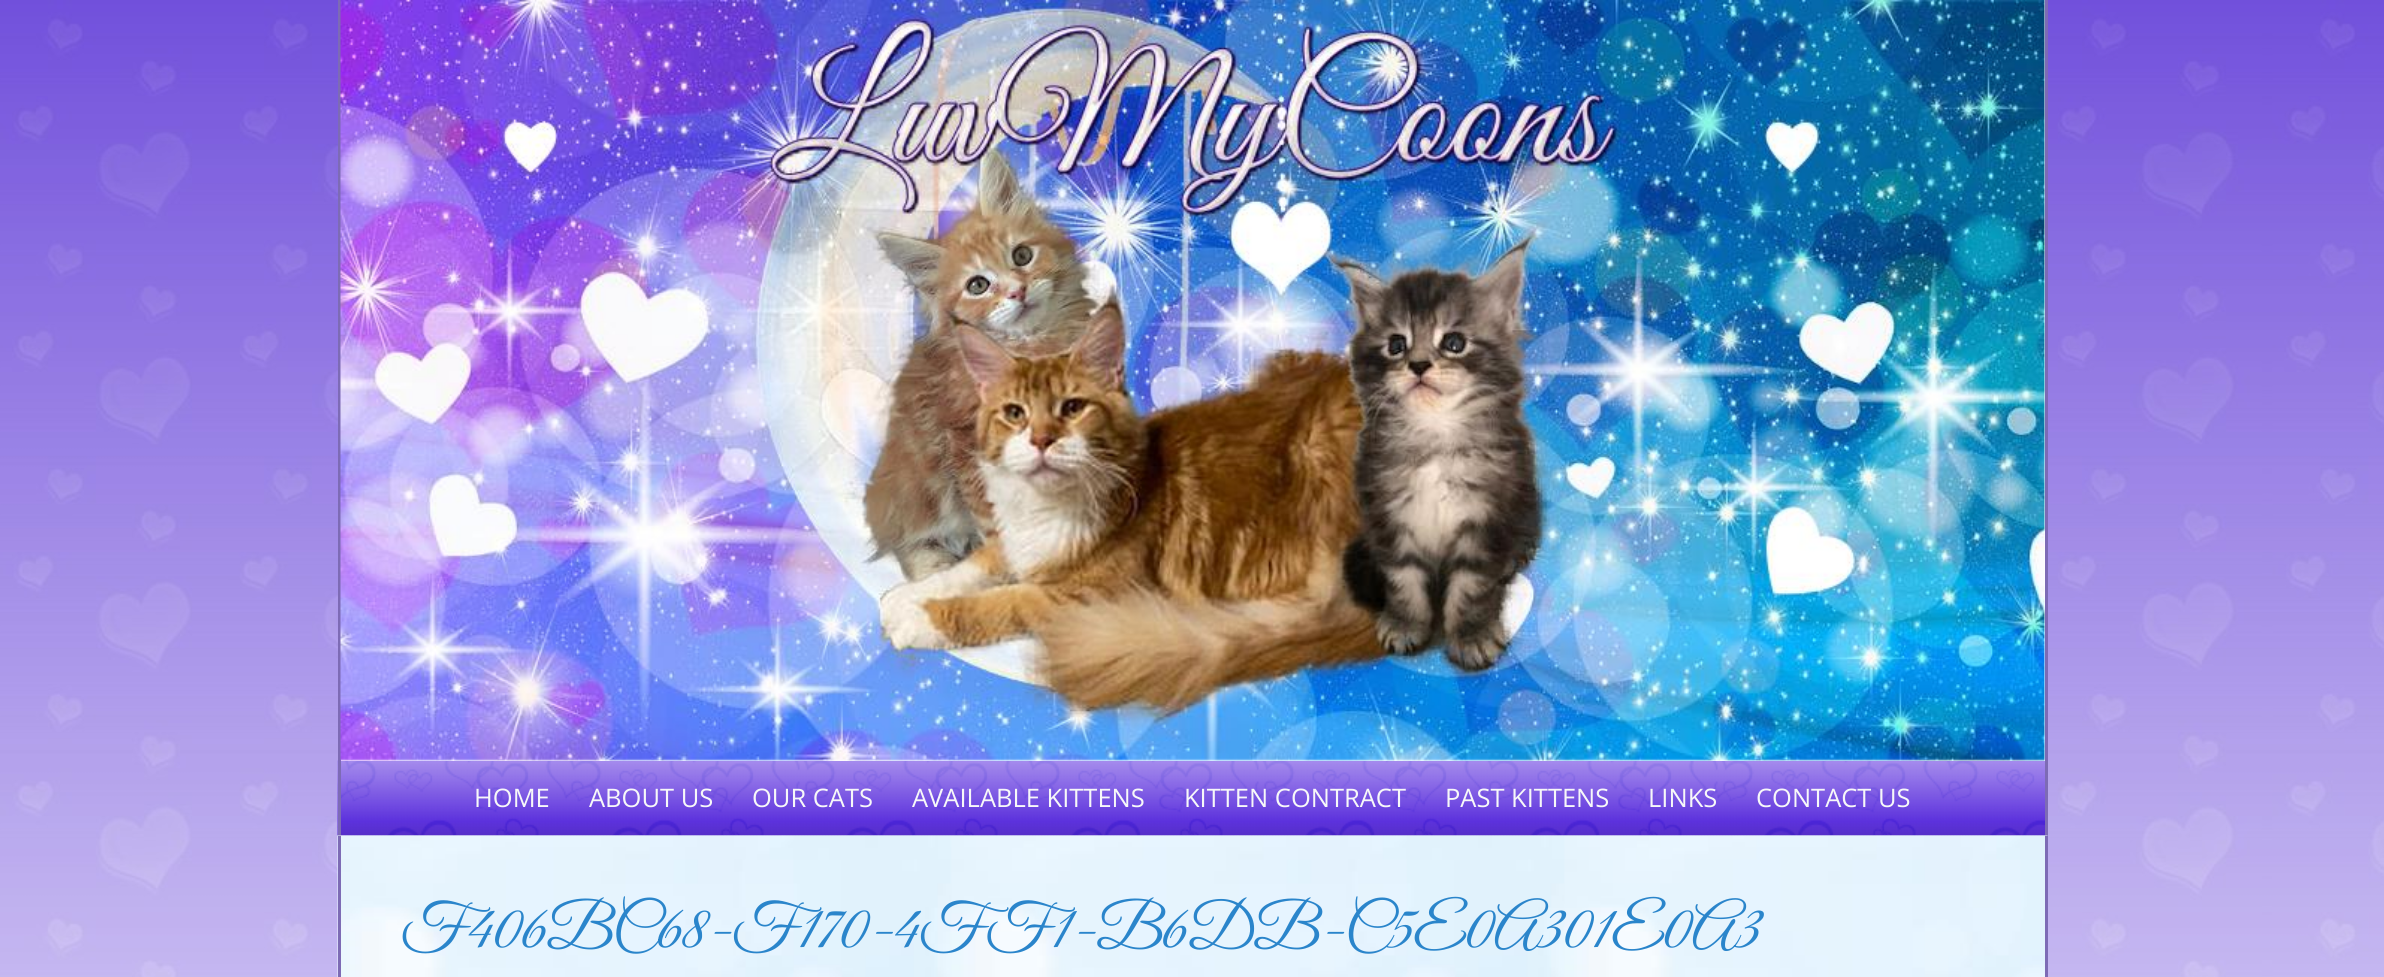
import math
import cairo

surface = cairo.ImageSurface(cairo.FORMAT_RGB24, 2384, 977)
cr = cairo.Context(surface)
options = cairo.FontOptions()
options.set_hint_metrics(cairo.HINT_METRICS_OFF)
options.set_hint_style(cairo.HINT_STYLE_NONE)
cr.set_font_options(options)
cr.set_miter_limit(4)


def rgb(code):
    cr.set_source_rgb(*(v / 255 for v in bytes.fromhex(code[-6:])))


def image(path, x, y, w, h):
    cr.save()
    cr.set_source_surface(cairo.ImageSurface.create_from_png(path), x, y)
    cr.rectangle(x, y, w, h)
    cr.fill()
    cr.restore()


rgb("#ffffff")
cr.paint()
image("img/1.png", 0, 0, 2384, 977)
image("img/3.png", 337, 760, 1708, 76)
rgb("#ffffff")
cr.rectangle(341, 0, 1704, 761)
cr.fill()
rgb("#7d6bb5")
cr.rectangle(338, 0, 3, 836)
cr.fill()
image("img/2.png", 340, 0, 1705, 761)
cr.rectangle(2045, 0, 3, 836)
cr.fill()
image("img/4.png", 337, 835, 1711, 142)
cr.rectangle(2045, 836, 3, 141)
cr.fill()
cr.rectangle(338, 836, 3, 141)
cr.fill()
cr.select_font_face("Open Sans")
cr.set_font_size(25.5)
rgb("#f7f8f9")
for x, y, s in [
    (474, 807, "HOME"),
    (589, 807, "ABOUT US"),
    (752, 807, "OUR CATS"),
    (912, 807, "AVAILABLE KITTENS"),
    (1184, 807, "KITTEN CONTRACT"),
    (1445, 807, "PAST KITTENS"),
    (1648, 807, "LINKS"),
    (1756, 807, "CONTACT US"),
]:
    cr.move_to(x, y)
    cr.show_text(s)
cr.select_font_face("Great Vibes")
cr.set_font_size(63)
rgb("#2a85cb")
cr.move_to(401, 947)
cr.show_text("F406BC68-F170-4FF1-B6DB-C5E0A301E0A3")
surface.write_to_png("page.png")
